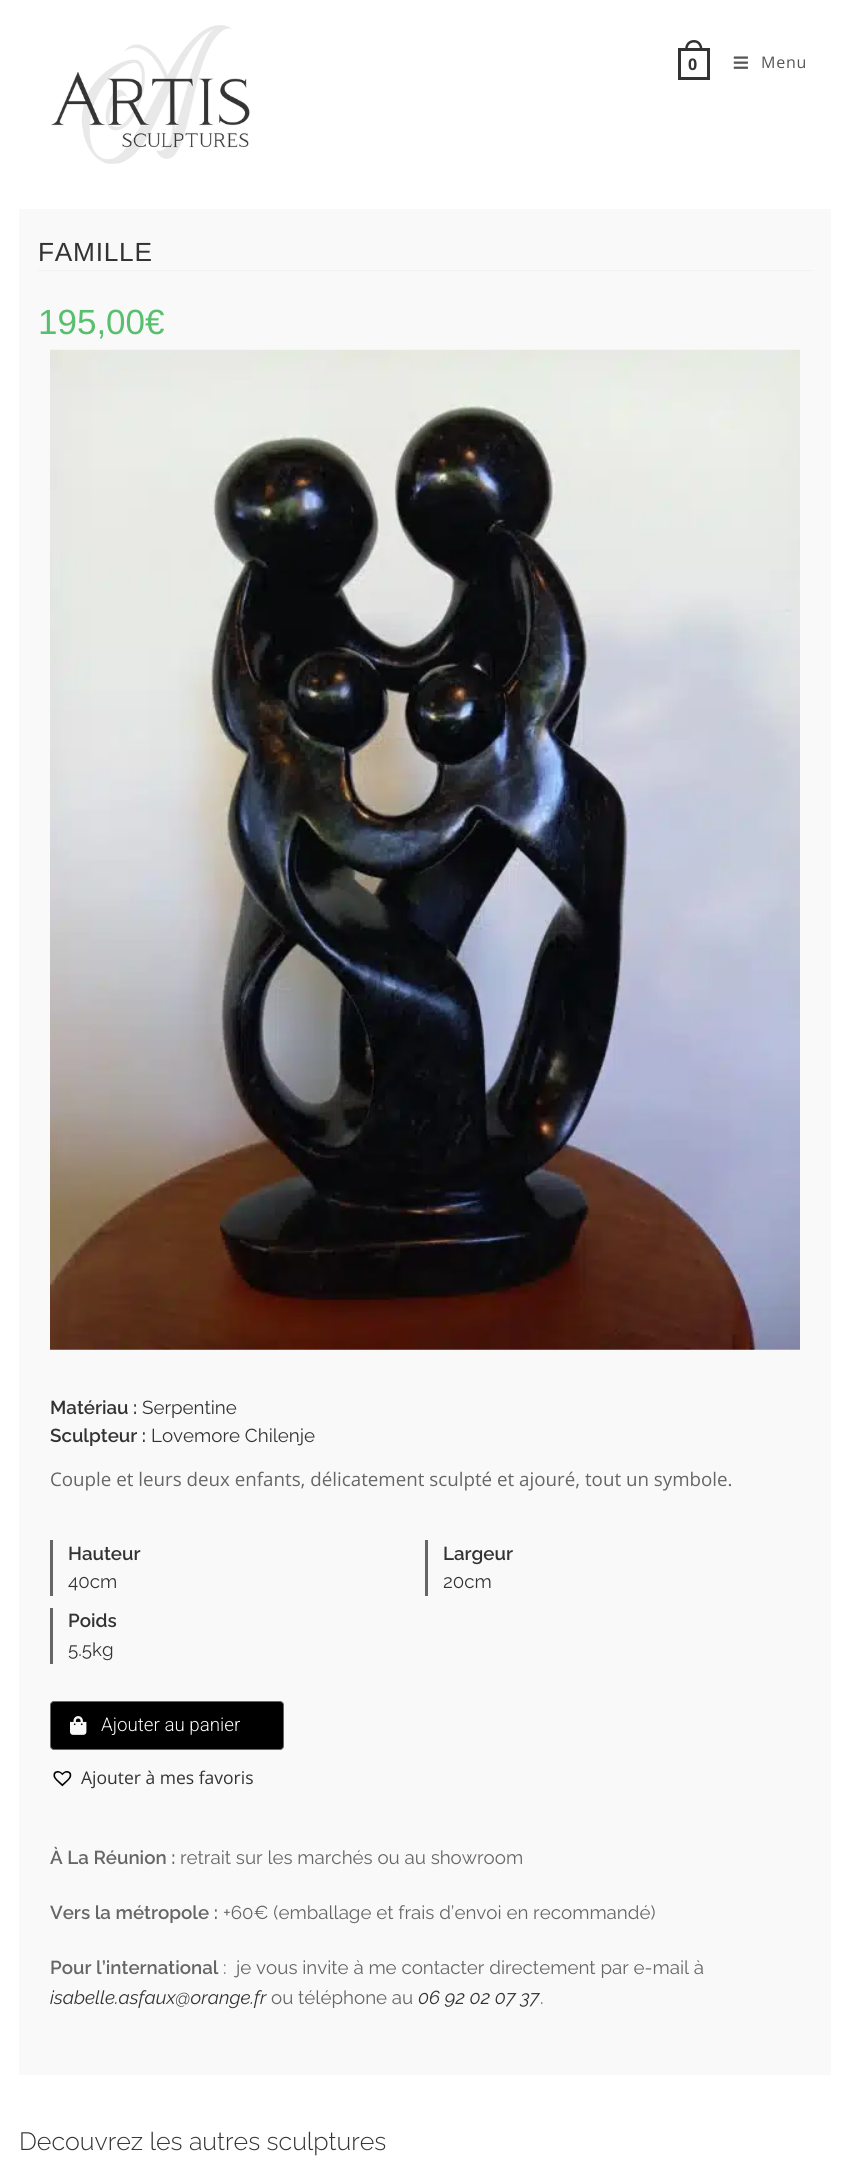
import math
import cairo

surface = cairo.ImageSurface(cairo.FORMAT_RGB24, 850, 2164)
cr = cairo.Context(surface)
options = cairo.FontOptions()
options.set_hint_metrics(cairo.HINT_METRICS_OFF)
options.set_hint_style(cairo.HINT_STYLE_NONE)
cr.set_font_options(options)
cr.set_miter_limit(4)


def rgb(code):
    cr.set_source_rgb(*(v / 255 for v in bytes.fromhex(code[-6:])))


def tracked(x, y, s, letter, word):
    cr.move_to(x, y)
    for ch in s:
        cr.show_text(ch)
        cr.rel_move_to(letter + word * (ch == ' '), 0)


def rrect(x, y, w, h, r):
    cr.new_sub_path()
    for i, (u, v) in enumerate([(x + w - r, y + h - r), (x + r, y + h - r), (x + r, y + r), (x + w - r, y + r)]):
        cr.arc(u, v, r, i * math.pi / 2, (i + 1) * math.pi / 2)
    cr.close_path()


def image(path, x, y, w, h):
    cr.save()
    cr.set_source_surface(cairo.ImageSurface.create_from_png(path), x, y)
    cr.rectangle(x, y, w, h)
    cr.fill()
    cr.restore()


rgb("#ffffff")
cr.paint()
image("img/1.png", 51, 25, 199, 139)
cr.rectangle(679.5, 49.5, 29, 29)
rgb("#333333")
cr.set_line_width(3)
cr.stroke()
cr.set_fill_rule(cairo.FILL_RULE_EVEN_ODD)
cr.new_path()
cr.move_to(694, 40)
cr.curve_to(699.5, 40, 702.5, 44.5, 702.5, 50)
cr.line_to(685, 50)
cr.curve_to(685, 44.5, 688, 40, 694, 40)
cr.close_path()
cr.move_to(694, 42.5)
cr.curve_to(698, 42.5, 700, 46, 700, 50)
cr.line_to(687.5, 50)
cr.curve_to(687.5, 46, 689.5, 42.5, 694, 42.5)
cr.close_path()
cr.fill()
image("img/2.png", 733, 56, 15, 13)
rgb("#f9f9f9")
cr.rectangle(19, 209, 812, 1866)
cr.fill()
rgb("#f1f1f1")
cr.rectangle(38, 270, 775, 1)
cr.fill()
image("img/3.png", 50, 349, 750, 1001)
for x, y, w, h, color in [
    (50, 1540, 3, 56, "#666666"),
    (425, 1540, 3, 56, "#666666"),
    (50, 1608, 3, 56, "#666666"),
]:
    rgb(color)
    cr.rectangle(x, y, w, h)
    cr.fill()
rgb("#000000")
rrect(50.5, 1701.5, 233, 48, 3.5)
cr.fill_preserve()
rgb("#666666")
cr.set_line_width(1)
cr.stroke()
image("img/4.png", 70, 1716, 17, 19)
image("img/5.png", 53, 1771, 19, 16)
cr.select_font_face("Open Sans", cairo.FONT_SLANT_NORMAL, cairo.FONT_WEIGHT_BOLD)
cr.set_font_size(16)
rgb("#333333")
tracked(688, 70, "0", 0.75, 0)
cr.select_font_face("Open Sans")
rgb("#555555")
tracked(761, 68, "Menu", 0.75, 0)
cr.select_font_face("Liberation Sans")
cr.set_font_size(26.25)
rgb("#333333")
tracked(38, 261, "FAMILLE", 0.75, 0)
cr.set_font_size(35)
rgb("#57bf6d")
cr.move_to(38, 334)
cr.show_text("195,00€")
cr.select_font_face("Raleway Thin")
cr.set_font_size(18.75)
rgb("#333333")
cr.move_to(50, 1414)
cr.show_text("Matériau :")
cr.select_font_face("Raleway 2 Thin")
cr.move_to(142, 1414)
cr.show_text("Serpentine")
cr.select_font_face("Raleway Thin")
cr.move_to(50, 1442)
cr.show_text("Sculpteur :")
cr.select_font_face("Raleway 2 Thin")
cr.move_to(151, 1442)
cr.show_text("Lovemore Chilenje")
cr.select_font_face("Open Sans")
rgb("#666666")
cr.move_to(50, 1486)
cr.show_text("Couple et leurs deux enfants, délicatement sculpté et ajouré, tout un symbole.")
cr.select_font_face("Raleway Thin")
rgb("#333333")
cr.move_to(68, 1560)
cr.show_text("Hauteur")
cr.select_font_face("Raleway 2 Thin")
cr.move_to(68, 1588)
cr.show_text("40cm")
cr.select_font_face("Raleway Thin")
cr.move_to(443, 1560)
cr.show_text("Largeur")
cr.select_font_face("Raleway 2 Thin")
cr.move_to(443, 1588)
cr.show_text("20cm")
cr.select_font_face("Raleway Thin")
cr.move_to(68, 1627)
cr.show_text("Poids")
cr.select_font_face("Raleway 2 Thin")
cr.move_to(68, 1656)
cr.show_text("5.5kg")
cr.select_font_face("Roboto Light")
rgb("#f9f9f9")
cr.move_to(101, 1731)
cr.show_text("Ajouter au panier")
cr.select_font_face("Open Sans")
cr.set_font_size(17.5)
rgb("#333333")
cr.move_to(81, 1784)
cr.show_text("Ajouter à mes favoris")
cr.select_font_face("Raleway Thin")
cr.set_font_size(18.75)
rgb("#666666")
cr.move_to(50, 1864)
cr.show_text("À La Réunion :")
cr.select_font_face("Raleway 2 Thin")
cr.move_to(180, 1864)
cr.show_text("retrait sur les marchés ou au showroom")
cr.select_font_face("Raleway Thin")
cr.move_to(50, 1919)
cr.show_text("Vers la métropole :")
cr.select_font_face("Raleway 2 Thin")
cr.move_to(223, 1919)
cr.show_text("+60€ (emballage et frais d’envoi en recommandé)")
cr.select_font_face("Raleway Thin")
cr.move_to(50, 1974)
cr.show_text("Pour l’international")
cr.select_font_face("Raleway 2 Thin")
cr.move_to(223, 1974)
cr.show_text(":  je vous invite à me contacter directement par e-mail à")
cr.select_font_face("Raleway Thin", cairo.FONT_SLANT_ITALIC)
rgb("#333333")
cr.move_to(50, 2004)
cr.show_text("isabelle.asfaux@orange.fr")
cr.select_font_face("Raleway 2 Thin")
rgb("#666666")
cr.move_to(271, 2004)
cr.show_text("ou téléphone au")
cr.select_font_face("Raleway Thin", cairo.FONT_SLANT_ITALIC)
rgb("#333333")
cr.move_to(418, 2004)
cr.show_text("06 92 02 07 37")
cr.select_font_face("Raleway 2 Thin")
rgb("#666666")
cr.move_to(540, 2004)
cr.show_text(".")
cr.select_font_face("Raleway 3 Thin")
cr.set_font_size(25)
rgb("#333333")
cr.move_to(19, 2150)
cr.show_text("Decouvrez les autres sculptures")
surface.write_to_png("page.png")
